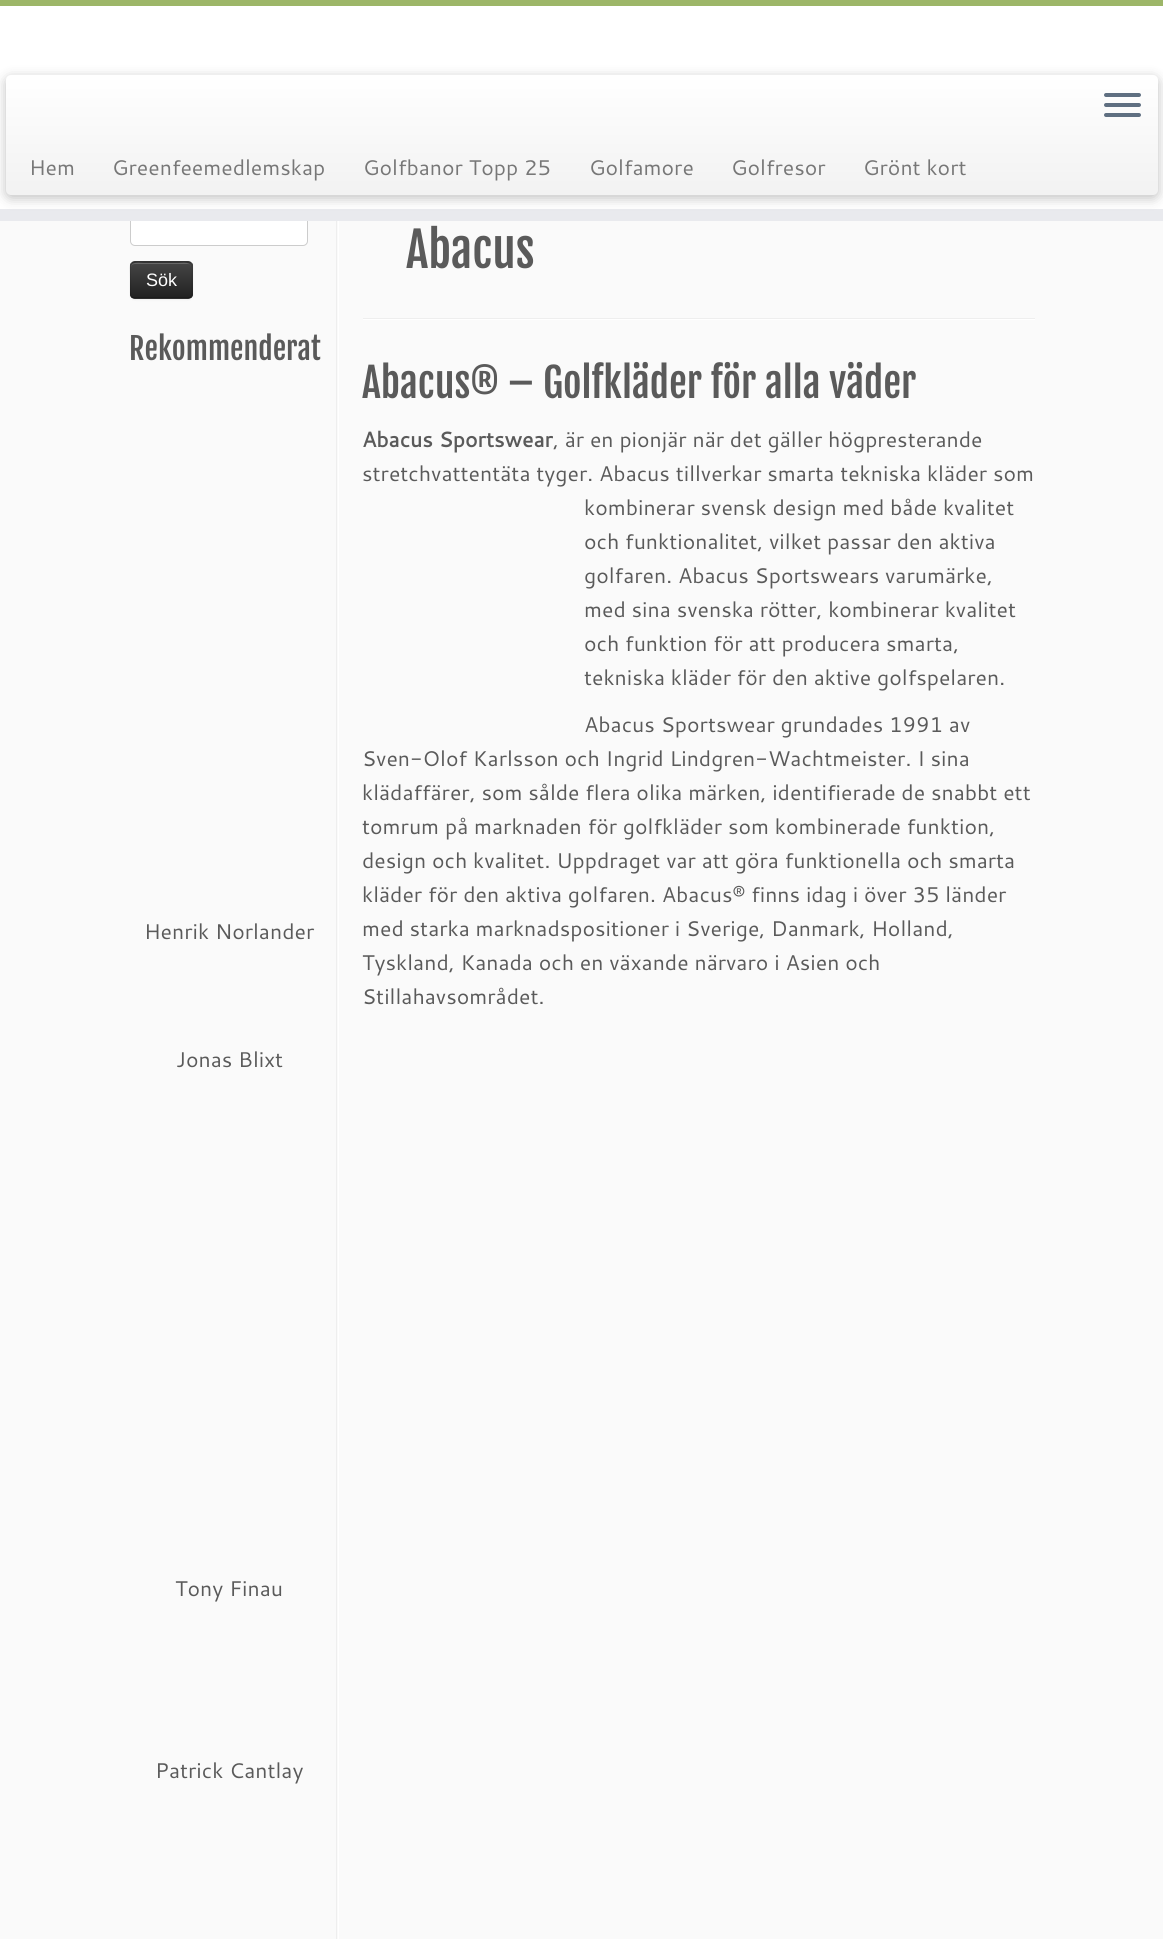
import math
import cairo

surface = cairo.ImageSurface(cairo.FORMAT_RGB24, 1163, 1939)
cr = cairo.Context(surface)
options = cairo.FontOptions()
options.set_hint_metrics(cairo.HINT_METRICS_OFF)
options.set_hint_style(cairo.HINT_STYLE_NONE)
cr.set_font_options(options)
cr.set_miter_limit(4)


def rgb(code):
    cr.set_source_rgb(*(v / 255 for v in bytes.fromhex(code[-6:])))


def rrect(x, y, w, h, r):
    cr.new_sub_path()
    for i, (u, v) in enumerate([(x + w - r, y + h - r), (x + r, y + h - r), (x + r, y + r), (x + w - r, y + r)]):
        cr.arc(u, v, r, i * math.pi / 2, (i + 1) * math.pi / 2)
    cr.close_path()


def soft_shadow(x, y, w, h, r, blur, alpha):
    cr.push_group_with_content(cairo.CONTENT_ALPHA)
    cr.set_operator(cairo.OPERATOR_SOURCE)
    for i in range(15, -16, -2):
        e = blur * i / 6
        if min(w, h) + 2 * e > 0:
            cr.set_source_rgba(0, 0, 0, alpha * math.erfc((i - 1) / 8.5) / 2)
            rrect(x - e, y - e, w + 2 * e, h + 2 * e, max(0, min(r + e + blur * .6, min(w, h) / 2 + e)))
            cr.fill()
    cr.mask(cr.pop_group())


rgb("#fafafa")
cr.paint()
rgb("#ffffff")
rrect(130.5, 206.5, 177, 39, 4.5)
cr.fill_preserve()
rgb("#cccccc")
cr.set_line_width(1)
cr.stroke()
for x, y, w, h, color in [
    (0, 6, 1163, 203, "#ffffff"),
    (0, 0, 1163, 6, "#9db668"),
    (0, 209, 1163, 12, "#e9eaee"),
]:
    rgb(color)
    cr.rectangle(x, y, w, h)
    cr.fill()
rgb("#000000")
soft_shadow(6, 78, 1152, 120, 5, 6, 0.25)
gradient = cairo.LinearGradient(582, 75, 582, 195)
gradient.add_color_stop_rgba(0, 1, 1, 1, 1)
gradient.add_color_stop_rgba(1, 0.949, 0.949, 0.949, 1)
cr.set_source(gradient)
rrect(6, 75, 1152, 120, 5)
cr.fill()
rgb("#5f6f81")
rrect(1104, 93, 37, 4, 2)
cr.fill()
rrect(1104, 103, 37, 4, 2)
cr.fill()
rrect(1104, 113, 37, 4, 2)
cr.fill()
rgb("#eeeeee")
cr.rectangle(336, 221, 1, 1718)
cr.fill()
rgb("#000000")
soft_shadow(130, 263, 63, 37, 5, 1, 0.05)
rgb("#363636")
rrect(130, 261, 63, 38, 5)
cr.fill()
cr.save()
rrect(130, 261, 63, 38, 5)
cr.clip()
gradient = cairo.LinearGradient(161, 263, 161, 298)
gradient.add_color_stop_rgba(0, 0.267, 0.267, 0.267, 1)
gradient.add_color_stop_rgba(1, 0.133, 0.133, 0.133, 1)
cr.set_source(gradient)
cr.rectangle(130, 263, 63, 35)
cr.fill()
cr.restore()
rgb("#696969")
cr.new_path()
cr.move_to(135, 264)
cr.line_to(188, 264)
cr.curve_to(190, 264, 191, 265, 191, 268)
cr.curve_to(191, 261, 183, 263, 178, 263)
cr.line_to(144, 263)
cr.curve_to(139, 263, 131, 261, 131, 268)
cr.curve_to(131, 265, 133, 264, 135, 264)
cr.close_path()
cr.fill()
cr.new_path()
cr.move_to(190.5, 297)
cr.curve_to(190, 297.5, 188.5, 298, 187.5, 298)
cr.line_to(135, 298)
cr.curve_to(134, 298, 132.5, 297.5, 132, 297)
cr.set_source_rgba(0, 0, 0, 0.25)
cr.set_line_width(1.2)
cr.stroke()
cr.new_path()
cr.move_to(132, 297)
cr.curve_to(130, 295, 130.5, 291.5, 130.5, 289)
cr.line_to(130.5, 280)
cr.curve_to(130.5, 262.5, 127, 262, 144, 262)
cr.line_to(179, 262)
cr.curve_to(195.5, 262, 192, 262.5, 192, 280)
cr.line_to(192, 289)
cr.curve_to(192, 291.5, 192.5, 295, 190.5, 297)
cr.set_source_rgba(0, 0, 0, 0.1)
cr.stroke()
for x, y, w, h, color in [
    (338, 221, 1, 1718, "#ffffff"),
    (363, 318, 672, 1, "#eeeeee"),
    (363, 319, 672, 1, "#ffffff"),
]:
    rgb(color)
    cr.rectangle(x, y, w, h)
    cr.fill()
cr.select_font_face("Cantarell")
cr.set_font_size(21.25)
rgb("#777777")
for x, y, s in [
    (29, 175, "Hem"),
    (112, 175, "Greenfeemedlemskap"),
    (363, 175, "Golfbanor Topp 25"),
    (589, 175, "Golfamore"),
    (731, 175, "Golfresor"),
    (863, 175, "Grönt kort"),
]:
    cr.move_to(x, y)
    cr.show_text(s)
cr.select_font_face("Liberation Sans")
cr.set_font_size(18)
rgb("#ffffff")
cr.move_to(146, 286)
cr.show_text("Sök")
cr.select_font_face("Fjalla One")
cr.set_font_size(30)
rgb("#5a5a5a")
cr.move_to(129, 360)
cr.show_text("Rekommenderat")
cr.select_font_face("Cantarell")
cr.set_font_size(21.25)
for x, y, s in [
    (144, 939, "Henrik Norlander"),
    (176, 1067, "Jonas Blixt"),
    (175, 1596, "Tony Finau"),
    (155, 1778, "Patrick Cantlay"),
]:
    cr.move_to(x, y)
    cr.show_text(s)
cr.select_font_face("Fjalla One")
cr.set_font_size(47.5)
cr.move_to(406, 268)
cr.show_text("Abacus")
cr.set_font_size(40)
cr.move_to(362, 398)
cr.show_text("Abacus® – Golfkläder för alla väder")
cr.select_font_face("Cantarell", cairo.FONT_SLANT_NORMAL, cairo.FONT_WEIGHT_BOLD)
cr.set_font_size(21.25)
cr.move_to(362, 447)
cr.show_text("Abacus Sportswear")
cr.select_font_face("Cantarell")
for x, y, s in [
    (553, 447, ", är en pionjär när det gäller högpresterande"),
    (362, 481, "stretchvattentäta tyger. Abacus tillverkar smarta tekniska kläder som"),
    (584, 515, "kombinerar svensk design med både kvalitet"),
    (584, 549, "och funktionalitet, vilket passar den aktiva"),
    (584, 583, "golfaren. Abacus Sportswears varumärke,"),
    (584, 617, "med sina svenska rötter, kombinerar kvalitet"),
    (584, 651, "och funktion för att producera smarta,"),
    (584, 685, "tekniska kläder för den aktive golfspelaren."),
    (584, 732, "Abacus Sportswear grundades 1991 av"),
    (362, 766, "Sven-Olof Karlsson och Ingrid Lindgren-Wachtmeister. I sina"),
    (362, 800, "klädaffärer, som sålde flera olika märken, identifierade de snabbt ett"),
    (362, 834, "tomrum på marknaden för golfkläder som kombinerade funktion,"),
    (362, 868, "design och kvalitet. Uppdraget var att göra funktionella och smarta"),
    (362, 902, "kläder för den aktiva golfaren. Abacus® finns idag i över 35 länder"),
    (362, 936, "med starka marknadspositioner i Sverige, Danmark, Holland,"),
    (362, 970, "Tyskland, Kanada och en växande närvaro i Asien och"),
    (362, 1004, "Stillahavsområdet."),
]:
    cr.move_to(x, y)
    cr.show_text(s)
surface.write_to_png("page.png")
